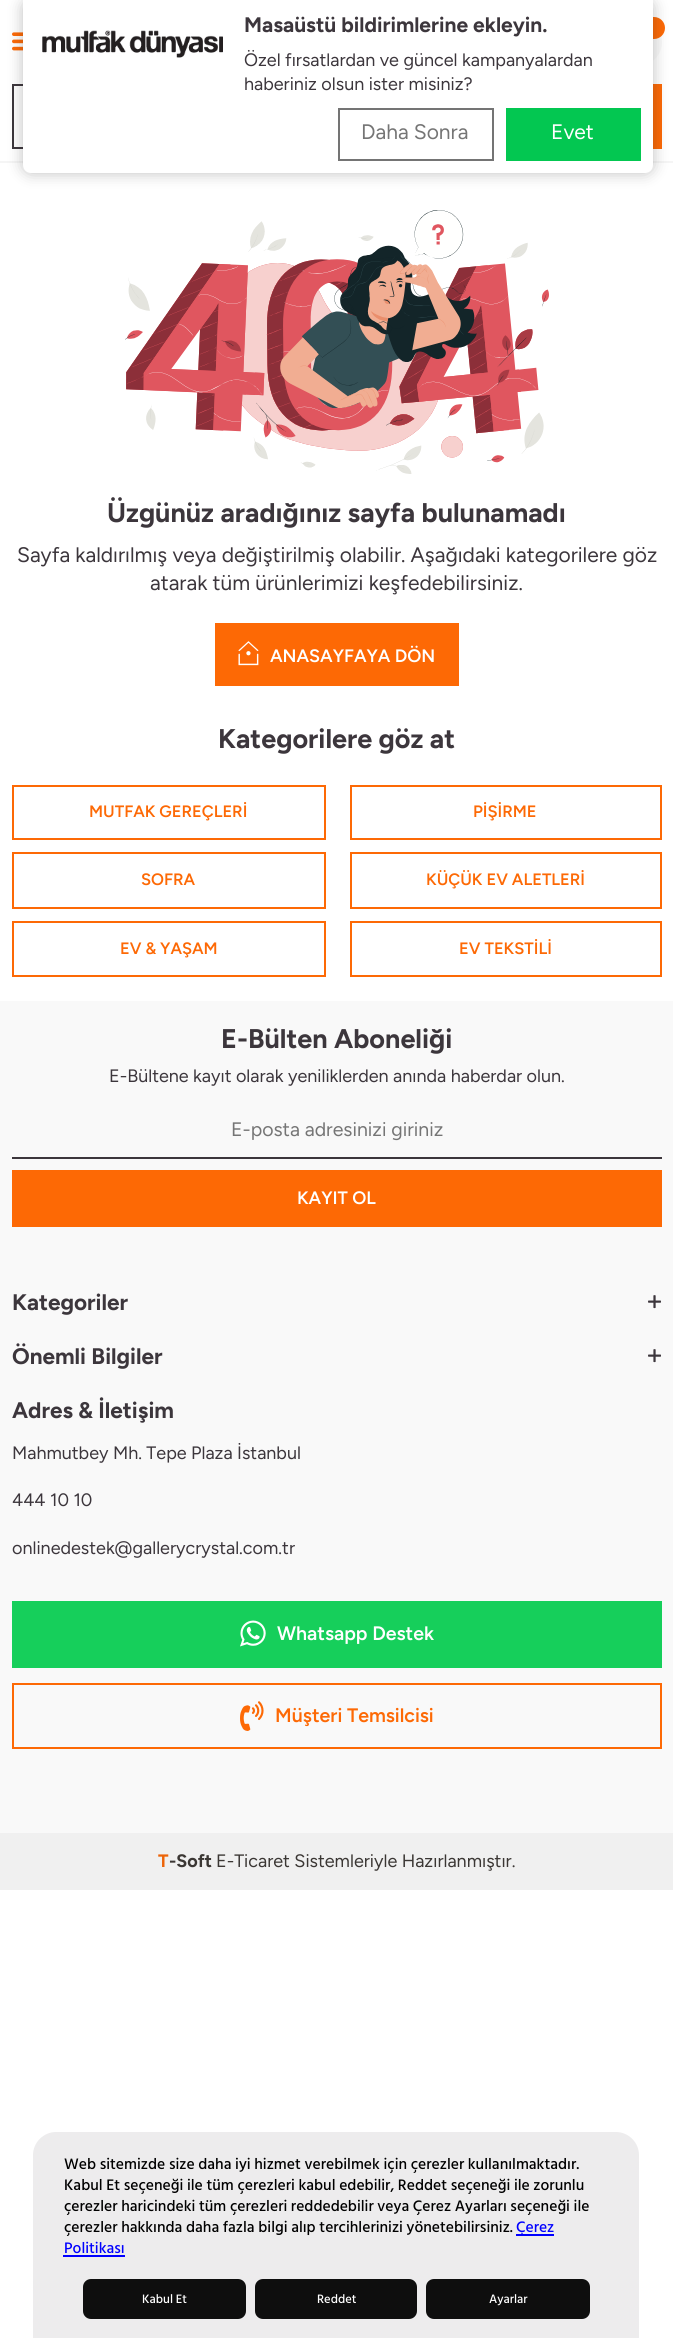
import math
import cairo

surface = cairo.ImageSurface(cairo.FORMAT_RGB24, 673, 2338)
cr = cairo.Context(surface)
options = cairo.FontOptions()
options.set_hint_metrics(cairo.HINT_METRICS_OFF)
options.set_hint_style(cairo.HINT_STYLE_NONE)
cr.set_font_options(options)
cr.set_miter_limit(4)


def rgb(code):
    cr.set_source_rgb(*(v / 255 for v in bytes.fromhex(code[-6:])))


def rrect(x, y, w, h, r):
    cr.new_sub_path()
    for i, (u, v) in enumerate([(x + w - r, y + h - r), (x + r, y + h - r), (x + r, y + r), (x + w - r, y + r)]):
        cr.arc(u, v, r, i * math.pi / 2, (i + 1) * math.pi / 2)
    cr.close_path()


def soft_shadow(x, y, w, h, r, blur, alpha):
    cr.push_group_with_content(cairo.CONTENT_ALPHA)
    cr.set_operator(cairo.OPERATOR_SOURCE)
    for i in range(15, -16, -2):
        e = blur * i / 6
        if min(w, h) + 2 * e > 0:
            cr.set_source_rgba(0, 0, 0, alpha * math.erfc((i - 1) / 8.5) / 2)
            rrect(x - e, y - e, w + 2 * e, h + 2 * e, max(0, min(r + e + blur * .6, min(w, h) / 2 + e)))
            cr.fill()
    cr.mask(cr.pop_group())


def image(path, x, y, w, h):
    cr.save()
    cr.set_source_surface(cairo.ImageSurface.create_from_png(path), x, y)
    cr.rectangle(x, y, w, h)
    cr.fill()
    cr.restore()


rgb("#ffffff")
cr.paint()
rgb("#f5f5f5")
cr.rectangle(0, 161, 673, 2)
cr.fill()
image("img/2.png", 12, 32, 11, 19)
rgb("#f9f9f9")
cr.arc(639.5, 42.5, 22.5, 0, 2 * math.pi)
cr.fill()
rgb("#fd6905")
rrect(642, 17, 23, 22, 11)
cr.fill()
cr.rectangle(13, 85, 648, 63)
rgb("#3c363c")
cr.stroke()
rgb("#fd6905")
cr.rectangle(653, 84, 9, 65)
cr.fill()
rgb("#282828")
soft_shadow(23, 0, 630, 173, 8, 7.5, 0.3)
rgb("#ffffff")
cr.new_path()
cr.move_to(23, 0)
cr.line_to(653, 0)
cr.line_to(653, 165)
cr.curve_to(653, 169.5, 649.5, 173, 645, 173)
cr.line_to(31, 173)
cr.curve_to(26.5, 173, 23, 169.5, 23, 165)
cr.close_path()
cr.fill()
image("img/1.png", 42, 30, 181, 28)
cr.rectangle(339, 109, 154, 51)
rgb("#747474")
cr.stroke()
rgb("#03c751")
cr.rectangle(506, 108, 135, 53)
cr.fill()
image("img/3.png", 125, 210, 424, 264)
rgb("#fd6905")
cr.rectangle(215, 623, 244, 63)
cr.fill()
image("img/4.png", 238, 641, 21, 25)
cr.rectangle(13, 786, 312, 53)
cr.stroke()
cr.rectangle(351, 786, 310, 53)
cr.stroke()
cr.rectangle(13, 853, 312, 55)
cr.stroke()
cr.rectangle(351, 853, 310, 55)
cr.stroke()
cr.rectangle(13, 922, 312, 54)
cr.stroke()
cr.rectangle(351, 922, 310, 54)
cr.stroke()
for x, y, w, h, color in [
    (0, 1001, 673, 832, "#f9f9f9"),
    (12, 1157, 650, 2, "#3c363c"),
    (12, 1170, 650, 57, "#fd6905"),
]:
    rgb(color)
    cr.rectangle(x, y, w, h)
    cr.fill()
image("img/5.png", 648, 1295, 13, 14)
image("img/5.png", 648, 1349, 13, 14)
rgb("#16cf5b")
cr.rectangle(12, 1601, 650, 67)
cr.fill()
image("img/6.png", 240, 1620, 26, 27)
cr.rectangle(13, 1684, 648, 64)
rgb("#fd6905")
cr.stroke()
image("img/7.png", 240, 1701, 24, 30)
rgb("#f0f0f0")
cr.rectangle(0, 1833, 673, 57)
cr.fill()
rgb("#edeced")
cr.new_path()
cr.move_to(56, 2132)
cr.line_to(616, 2132)
cr.curve_to(628.5, 2132, 639, 2142.5, 639, 2155)
cr.line_to(639, 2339)
cr.line_to(33, 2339)
cr.line_to(33, 2155)
cr.curve_to(33, 2142.5, 43.5, 2132, 56, 2132)
cr.close_path()
cr.fill()
rgb("#0000ff")
cr.rectangle(516, 2234, 38, 2)
cr.fill()
cr.rectangle(63, 2255, 62, 2)
cr.fill()
rgb("#0e0e0e")
rrect(83, 2279, 163, 40, 8)
cr.fill()
rrect(255, 2279, 162, 40, 8)
cr.fill()
rrect(426, 2279, 164, 40, 8)
cr.fill()
cr.select_font_face("Figtree", cairo.FONT_SLANT_NORMAL, cairo.FONT_WEIGHT_BOLD)
cr.set_font_size(21)
rgb("#3c363c")
cr.move_to(244, 32)
cr.show_text("Masaüstü bildirimlerine ekleyin.")
cr.select_font_face("Figtree")
cr.set_font_size(18)
cr.move_to(244, 66)
cr.show_text("Özel fırsatlardan ve güncel kampanyalardan")
cr.move_to(244, 90)
cr.show_text("haberiniz olsun ister misiniz?")
cr.set_font_size(21)
rgb("#757575")
cr.move_to(361, 139)
cr.show_text("Daha Sonra")
rgb("#ffffff")
cr.move_to(551, 139)
cr.show_text("Evet")
cr.select_font_face("Figtree", cairo.FONT_SLANT_NORMAL, cairo.FONT_WEIGHT_BOLD)
cr.set_font_size(27)
rgb("#3c363c")
cr.move_to(107, 522)
cr.show_text("Üzgünüz aradığınız sayfa bulunamadı")
cr.select_font_face("Figtree")
cr.set_font_size(21)
cr.move_to(17, 562)
cr.show_text("Sayfa kaldırılmış veya değiştirilmiş olabilir. Aşağıdaki kategorilere göz")
cr.move_to(150, 590)
cr.show_text("atarak tüm ürünlerimizi keşfedebilirsiniz.")
cr.select_font_face("Figtree SemiBold")
cr.set_font_size(18)
rgb("#ffffff")
cr.move_to(270, 662)
cr.show_text("ANASAYFAYA DÖN")
cr.select_font_face("Figtree", cairo.FONT_SLANT_NORMAL, cairo.FONT_WEIGHT_BOLD)
cr.set_font_size(27)
rgb("#3c363c")
cr.move_to(218, 748)
cr.show_text("Kategorilere göz at")
cr.select_font_face("Figtree SemiBold")
cr.set_font_size(16.5)
rgb("#fd6905")
for x, y, s in [
    (89, 817, "MUTFAK GEREÇLERİ"),
    (473, 817, "PİŞİRME"),
    (141, 885, "SOFRA"),
    (426, 885, "KÜÇÜK EV ALETLERİ"),
    (120, 954, "EV & YAŞAM"),
    (459, 954, "EV TEKSTİLİ"),
]:
    cr.move_to(x, y)
    cr.show_text(s)
cr.select_font_face("Figtree", cairo.FONT_SLANT_NORMAL, cairo.FONT_WEIGHT_BOLD)
cr.set_font_size(27)
rgb("#3c363c")
cr.move_to(221, 1048)
cr.show_text("E-Bülten Aboneliği")
cr.select_font_face("Figtree")
cr.set_font_size(18)
cr.move_to(109, 1082)
cr.show_text("E-Bültene kayıt olarak yeniliklerden anında haberdar olun.")
cr.set_font_size(19.5)
rgb("#757575")
cr.move_to(231, 1136)
cr.show_text("E-posta adresinizi giriniz")
cr.select_font_face("Figtree SemiBold")
cr.set_font_size(18)
rgb("#ffffff")
cr.move_to(297, 1204)
cr.show_text("KAYIT OL")
cr.select_font_face("Figtree", cairo.FONT_SLANT_NORMAL, cairo.FONT_WEIGHT_BOLD)
cr.set_font_size(22.5)
rgb("#3c363c")
for x, y, s in [
    (12, 1310, "Kategoriler"),
    (12, 1364, "Önemli Bilgiler"),
    (12, 1418, "Adres & İletişim"),
]:
    cr.move_to(x, y)
    cr.show_text(s)
cr.select_font_face("Figtree")
cr.set_font_size(18)
for x, y, s in [
    (12, 1459, "Mahmutbey Mh. Tepe Plaza İstanbul"),
    (12, 1506, "444 10 10"),
    (12, 1554, "onlinedestek@gallerycrystal.com.tr"),
]:
    cr.move_to(x, y)
    cr.show_text(s)
cr.select_font_face("Figtree SemiBold")
cr.set_font_size(19.5)
rgb("#ffffff")
cr.move_to(277, 1640)
cr.show_text("Whatsapp Destek")
rgb("#fd6905")
cr.move_to(275, 1722)
cr.show_text("Müşteri Temsilcisi")
cr.select_font_face("Figtree", cairo.FONT_SLANT_NORMAL, cairo.FONT_WEIGHT_BOLD)
cr.set_font_size(18)
rgb("#ec6408")
cr.move_to(158, 1867)
cr.show_text("T")
rgb("#3b3734")
cr.move_to(169, 1867)
cr.show_text("-Soft")
cr.select_font_face("Figtree")
cr.move_to(216, 1867)
cr.show_text("E-Ticaret Sistemleriyle Hazırlanmıştır.")
cr.select_font_face("Hind Siliguri Medium")
cr.set_font_size(15.6)
rgb("#000000")
for x, y, s in [
    (64, 2169, "Web sitemizde size daha iyi hizmet verebilmek için çerezler kullanılmaktadır."),
    (64, 2190, "Kabul Et seçeneği ile tüm çerezleri kabul edebilir, Reddet seçeneği ile zorunlu"),
    (64, 2211, "çerezler haricindeki tüm çerezleri reddedebilir veya Çerez Ayarları seçeneği ile"),
    (64, 2232, "çerezler hakkında daha fazla bilgi alıp tercihlerinizi yönetebilirsiniz."),
]:
    cr.move_to(x, y)
    cr.show_text(s)
rgb("#0000ff")
cr.move_to(516, 2232)
cr.show_text("Çerez")
cr.move_to(64, 2253)
cr.show_text("Politikası")
cr.set_font_size(12.5)
rgb("#ffffff")
for x, y, s in [
    (142, 2303, "Kabul Et"),
    (317, 2303, "Reddet"),
    (489, 2303, "Ayarlar"),
]:
    cr.move_to(x, y)
    cr.show_text(s)
surface.write_to_png("page.png")
